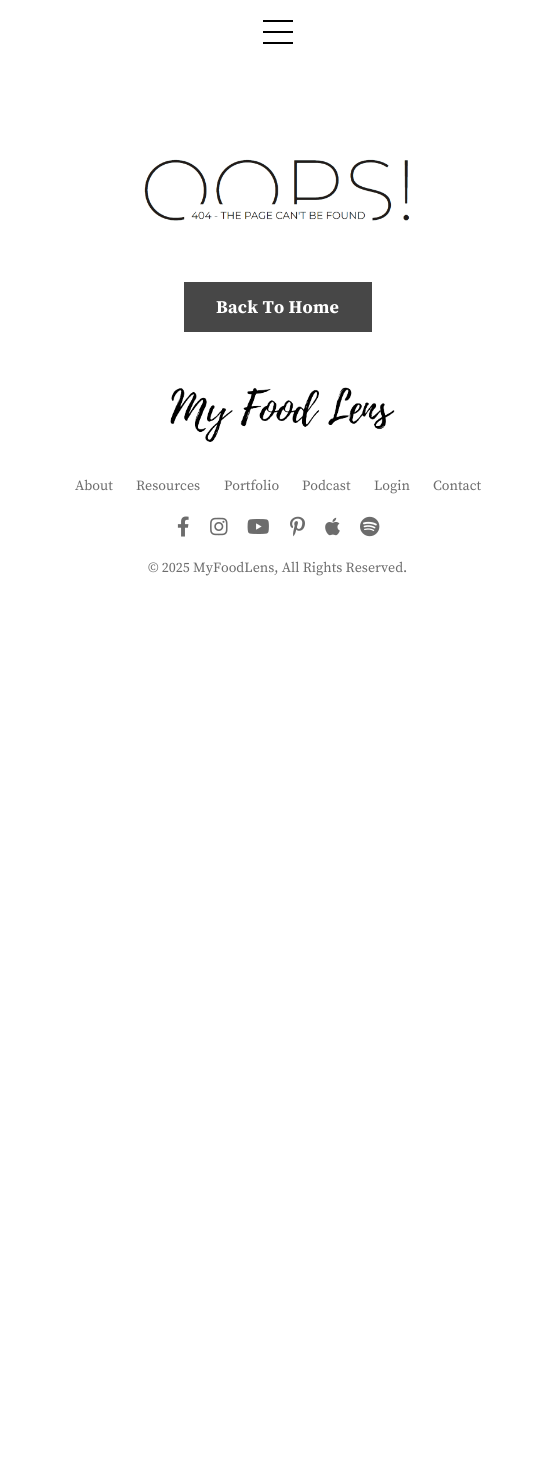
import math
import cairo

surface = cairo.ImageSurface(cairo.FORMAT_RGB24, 556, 1471)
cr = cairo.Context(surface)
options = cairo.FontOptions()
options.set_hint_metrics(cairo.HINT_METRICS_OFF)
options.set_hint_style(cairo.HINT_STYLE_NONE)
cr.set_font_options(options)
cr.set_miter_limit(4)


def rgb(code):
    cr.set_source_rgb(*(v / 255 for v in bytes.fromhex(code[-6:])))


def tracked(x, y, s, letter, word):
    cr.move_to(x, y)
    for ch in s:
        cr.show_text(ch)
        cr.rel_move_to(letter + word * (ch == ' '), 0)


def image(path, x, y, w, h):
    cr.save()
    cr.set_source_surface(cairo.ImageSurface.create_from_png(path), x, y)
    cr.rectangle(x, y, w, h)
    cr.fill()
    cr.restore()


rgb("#ffffff")
cr.paint()
for x, y, w, h, color in [
    (263, 20, 30, 2, "#000000"),
    (263, 31, 30, 2, "#000000"),
    (263, 42, 30, 2, "#000000"),
]:
    rgb(color)
    cr.rectangle(x, y, w, h)
    cr.fill()
image("img/1.png", 144, 159, 266, 62)
rgb("#474747")
cr.rectangle(184, 282, 188, 50)
cr.fill()
image("img/2.png", 170, 387, 225, 55)
image("img/3.png", 177, 516, 12, 21)
image("img/4.png", 210, 517, 18, 19)
image("img/5.png", 247, 519, 22, 15)
image("img/6.png", 290, 516, 15, 21)
image("img/7.png", 325, 517, 15, 19)
image("img/8.png", 360, 516, 20, 21)
cr.select_font_face("Source Serif Pro", cairo.FONT_SLANT_NORMAL, cairo.FONT_WEIGHT_BOLD)
cr.set_font_size(18)
rgb("#ffffff")
tracked(216, 313, "Back To Home", 0.25, 0)
cr.select_font_face("Source Serif Pro")
cr.set_font_size(14)
rgb("#6c6c6c")
for x, y, s in [
    (75, 490, "About"),
    (136, 490, "Resources"),
    (224, 490, "Portfolio"),
    (302, 490, "Podcast"),
    (374, 490, "Login"),
    (433, 490, "Contact"),
    (148, 572, "© 2025 MyFoodLens, All Rights Reserved."),
]:
    cr.move_to(x, y)
    cr.show_text(s)
surface.write_to_png("page.png")
